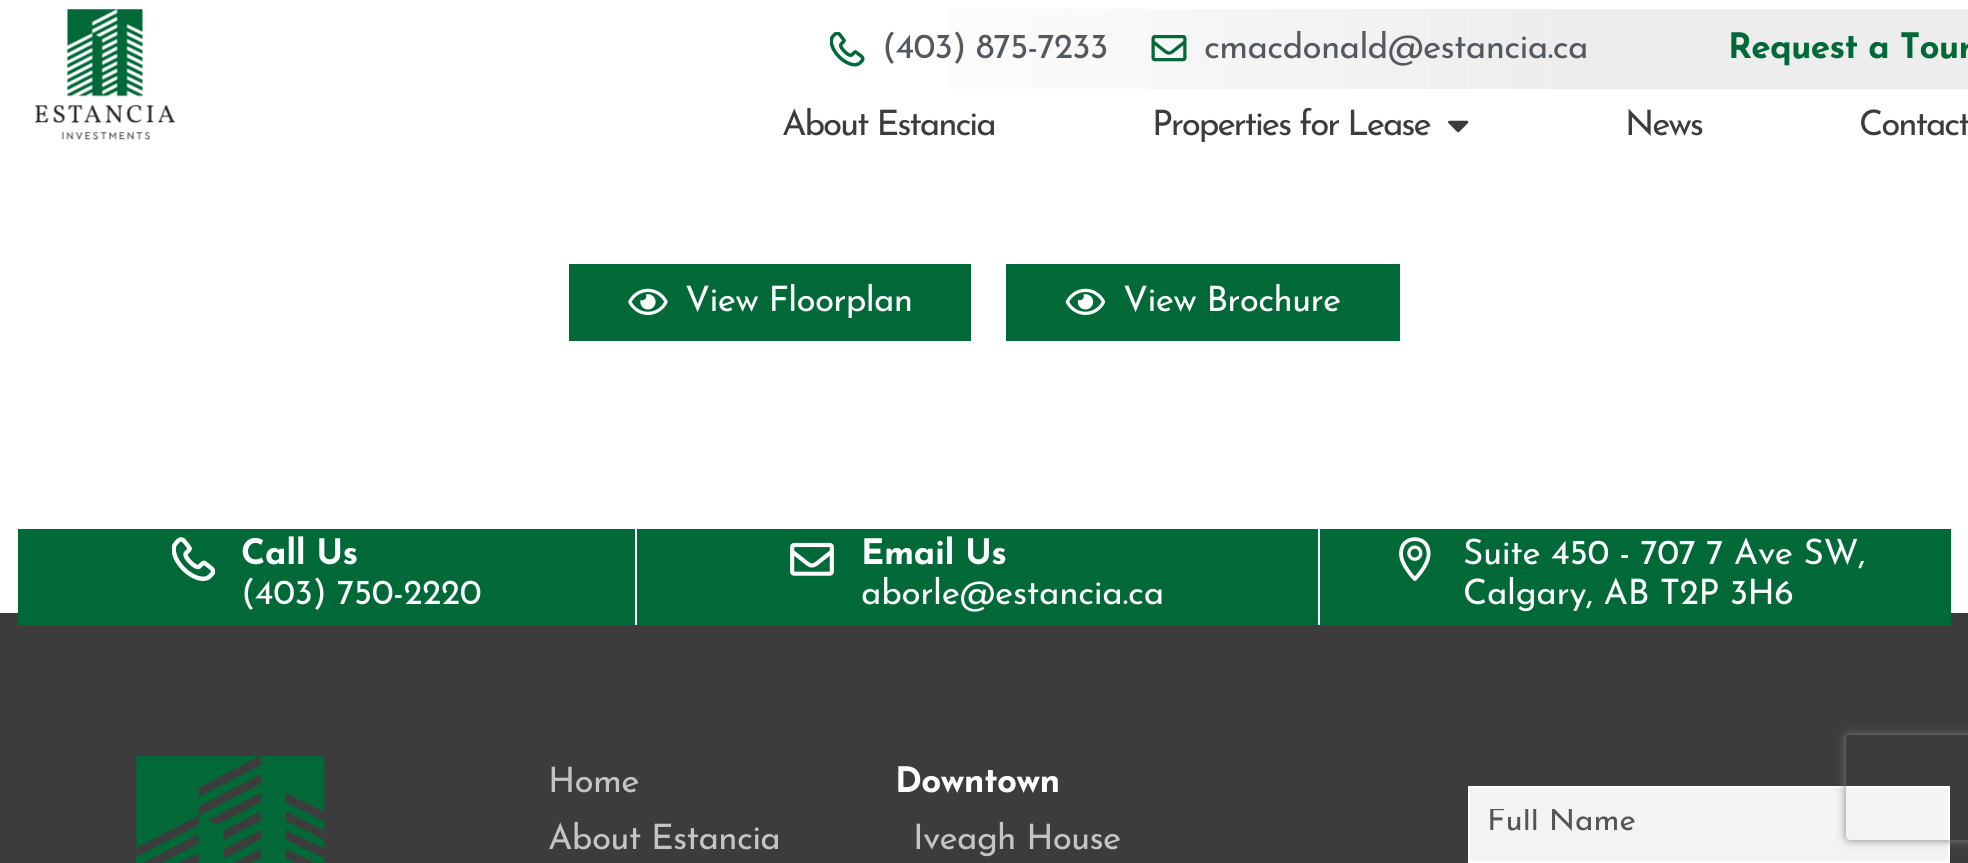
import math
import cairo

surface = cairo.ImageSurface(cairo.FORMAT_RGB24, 1968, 863)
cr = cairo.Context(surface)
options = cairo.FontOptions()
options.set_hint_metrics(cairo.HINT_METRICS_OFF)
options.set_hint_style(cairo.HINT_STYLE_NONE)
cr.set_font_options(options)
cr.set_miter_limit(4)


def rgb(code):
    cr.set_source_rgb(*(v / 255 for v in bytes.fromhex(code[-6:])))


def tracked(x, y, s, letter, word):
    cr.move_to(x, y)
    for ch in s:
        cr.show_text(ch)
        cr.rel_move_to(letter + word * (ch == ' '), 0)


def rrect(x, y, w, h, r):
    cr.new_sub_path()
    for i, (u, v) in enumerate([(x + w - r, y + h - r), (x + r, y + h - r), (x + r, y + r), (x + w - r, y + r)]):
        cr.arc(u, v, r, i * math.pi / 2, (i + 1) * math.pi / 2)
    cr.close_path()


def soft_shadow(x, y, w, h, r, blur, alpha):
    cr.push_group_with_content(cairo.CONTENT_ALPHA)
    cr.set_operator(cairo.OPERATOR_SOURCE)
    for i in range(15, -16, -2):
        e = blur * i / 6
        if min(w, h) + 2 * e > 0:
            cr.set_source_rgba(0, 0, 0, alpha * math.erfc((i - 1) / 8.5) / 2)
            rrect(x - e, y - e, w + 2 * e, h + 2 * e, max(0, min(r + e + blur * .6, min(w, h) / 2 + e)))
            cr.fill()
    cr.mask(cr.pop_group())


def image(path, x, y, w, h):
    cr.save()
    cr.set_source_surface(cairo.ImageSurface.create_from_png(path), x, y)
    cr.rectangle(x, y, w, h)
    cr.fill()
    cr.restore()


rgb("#ffffff")
cr.paint()
gradient = cairo.LinearGradient(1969, 49, 0, 49)
gradient.add_color_stop_rgba(0.2, 0.929, 0.929, 0.929, 1)
gradient.add_color_stop_rgba(0.57, 1, 1, 1, 1)
cr.set_source(gradient)
cr.rectangle(948, 9, 1020, 80)
cr.fill()
image("img/1.png", 35, 9, 140, 131)
image("img/2.png", 830, 32, 35, 35)
image("img/3.png", 1151, 35, 36, 27)
image("img/4.png", 1448, 120, 21, 13)
rgb("#006937")
cr.rectangle(569, 264, 402, 77)
cr.fill()
image("img/5.png", 628, 288, 40, 27)
cr.rectangle(1006, 264, 394, 77)
cr.fill()
image("img/6.png", 1065, 288, 41, 27)
for x, y, w, h, color in [
    (0, 613, 1968, 250, "#3c3c3c"),
    (18, 529, 1933, 96, "#006937"),
    (635, 529, 2, 96, "#ffffff"),
]:
    rgb(color)
    cr.rectangle(x, y, w, h)
    cr.fill()
image("img/7.png", 172, 537, 43, 44)
cr.rectangle(1318, 529, 2, 96)
cr.fill()
image("img/8.png", 790, 542, 44, 34)
image("img/9.png", 1399, 537, 32, 44)
image("img/10.png", 136, 756, 189, 107)
rgb("#f3f3f3")
cr.rectangle(1469, 787, 480, 75)
cr.fill_preserve()
rgb("#ffffff")
cr.stroke()
cr.save()
cr.set_fill_rule(cairo.FILL_RULE_EVEN_ODD)
cr.new_path()
cr.move_to(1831, 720)
cr.line_to(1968, 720)
cr.line_to(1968, 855)
cr.line_to(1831, 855)
cr.close_path()
cr.move_to(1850, 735)
cr.line_to(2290, 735)
cr.curve_to(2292, 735, 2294, 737, 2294, 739)
cr.line_to(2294, 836)
cr.curve_to(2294, 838, 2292, 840, 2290, 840)
cr.line_to(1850, 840)
cr.curve_to(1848, 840, 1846, 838, 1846, 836)
cr.line_to(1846, 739)
cr.curve_to(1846, 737, 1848, 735, 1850, 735)
cr.close_path()
cr.clip()
rgb("#808080")
soft_shadow(1846, 735, 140, 105, 4, 4.5, 1)
cr.restore()
cr.select_font_face("Josefin Sans")
cr.set_font_size(35)
rgb("#54595f")
tracked(882, 58, "(403) 875-7233", -0.7, 0)
tracked(1204, 58, "cmacdonald@estancia.ca", -0.7, 0)
cr.select_font_face("Josefin Sans", cairo.FONT_SLANT_NORMAL, cairo.FONT_WEIGHT_BOLD)
rgb("#006937")
tracked(1728, 58, "Request a Tour", -0.7, 0)
cr.select_font_face("Josefin Sans")
rgb("#3c3c3c")
for x, y, s in [
    (782, 135, "About Estancia"),
    (1152, 135, "Properties for Lease"),
    (1625, 135, "News"),
    (1859, 135, "Contact"),
]:
    tracked(x, y, s, -2.1, 0)
rgb("#ffffff")
tracked(685, 311, "View Floorplan", -0.7, 0)
tracked(1123, 311, "View Brochure", -0.7, 0)
cr.select_font_face("Josefin Sans", cairo.FONT_SLANT_NORMAL, cairo.FONT_WEIGHT_BOLD)
tracked(241, 564, "Call Us", -0.35, 0)
cr.select_font_face("Josefin Sans")
tracked(241, 604, "(403) 750-2220", -0.35, 0)
cr.select_font_face("Josefin Sans", cairo.FONT_SLANT_NORMAL, cairo.FONT_WEIGHT_BOLD)
tracked(861, 564, "Email Us", -0.35, 0)
cr.select_font_face("Josefin Sans")
for x, y, s in [
    (861, 604, "aborle@estancia.ca"),
    (1463, 564, "Suite 450 - 707 7 Ave SW,"),
    (1463, 604, "Calgary, AB T2P 3H6"),
]:
    tracked(x, y, s, -0.35, 0)
rgb("#c4c4c4")
tracked(548, 792, "Home", -0.7, 0)
tracked(548, 849, "About Estancia", -0.7, 0)
cr.select_font_face("Josefin Sans", cairo.FONT_SLANT_NORMAL, cairo.FONT_WEIGHT_BOLD)
rgb("#ffffff")
tracked(895, 792, "Downtown", -0.7, 0)
cr.select_font_face("Josefin Sans")
rgb("#c4c4c4")
tracked(913, 849, "Iveagh House", -0.7, 0)
cr.save()
cr.rectangle(1488, 809, 442, 31)
cr.clip()
cr.set_font_size(31.5)
rgb("#555555")
cr.move_to(1487, 830)
cr.show_text("Full Name")
cr.restore()
surface.write_to_png("page.png")
